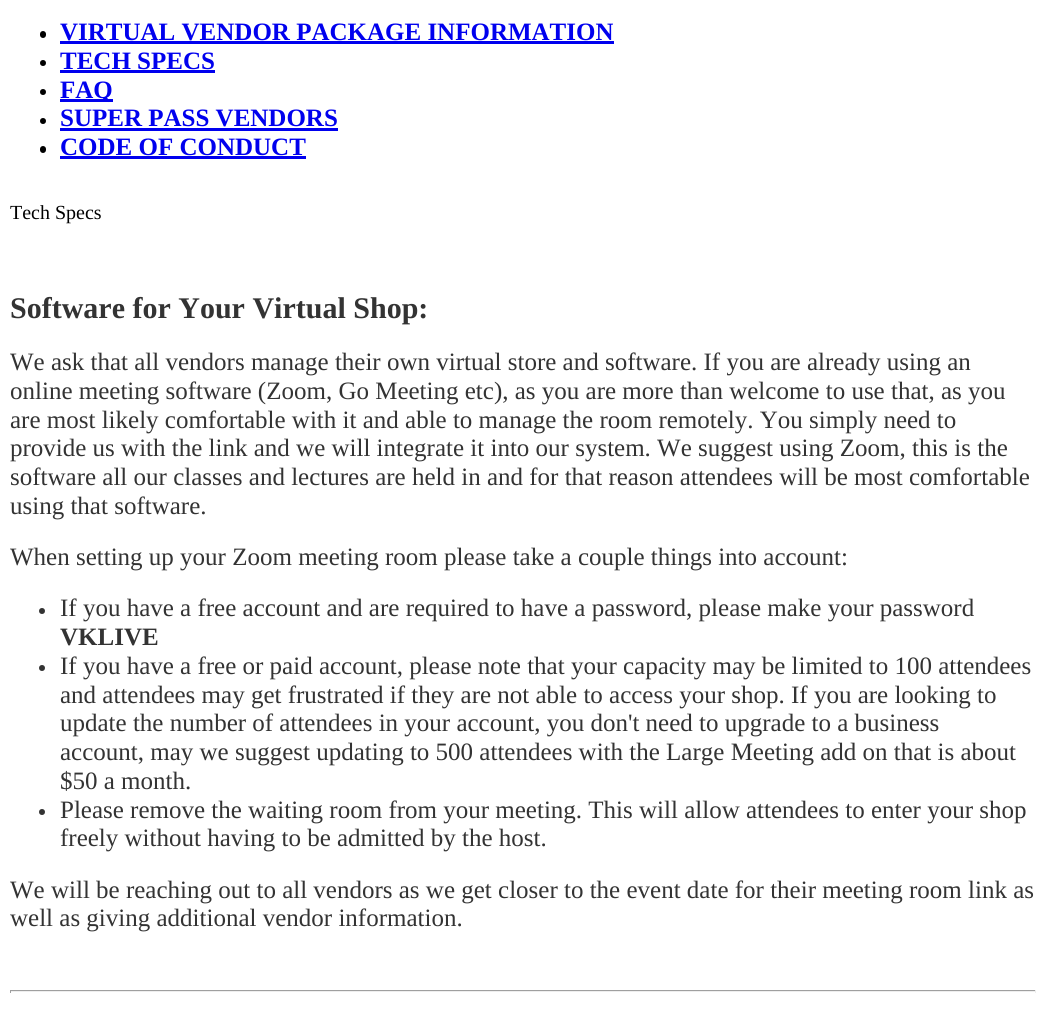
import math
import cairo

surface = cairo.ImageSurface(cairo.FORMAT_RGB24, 1046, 1012)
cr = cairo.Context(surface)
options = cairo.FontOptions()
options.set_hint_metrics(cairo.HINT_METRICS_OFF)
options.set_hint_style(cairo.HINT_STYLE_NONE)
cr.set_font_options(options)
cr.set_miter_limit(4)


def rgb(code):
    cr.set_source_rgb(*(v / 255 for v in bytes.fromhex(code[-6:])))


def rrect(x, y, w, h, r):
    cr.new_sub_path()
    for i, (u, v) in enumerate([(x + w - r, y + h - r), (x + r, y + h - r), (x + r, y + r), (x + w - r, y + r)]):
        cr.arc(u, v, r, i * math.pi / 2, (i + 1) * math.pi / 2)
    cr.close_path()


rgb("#ffffff")
cr.paint()
rgb("#000000")
rrect(40, 31, 6, 7, 3)
cr.fill()
rgb("#0000ee")
cr.rectangle(60, 41, 554, 3)
cr.fill()
rgb("#000000")
cr.arc(43, 63, 3, 0, 2 * math.pi)
cr.fill()
rgb("#0000ee")
cr.rectangle(60, 70, 155, 3)
cr.fill()
rgb("#000000")
cr.arc(43, 92, 3, 0, 2 * math.pi)
cr.fill()
rgb("#0000ee")
cr.rectangle(60, 99, 53, 3)
cr.fill()
rgb("#000000")
cr.arc(43, 121, 3, 0, 2 * math.pi)
cr.fill()
rgb("#0000ee")
cr.rectangle(60, 128, 278, 3)
cr.fill()
rgb("#000000")
rrect(40, 146, 6, 7, 3)
cr.fill()
rgb("#0000ee")
cr.rectangle(60, 156, 246, 3)
cr.fill()
rgb("#333333")
cr.arc(42, 611, 3, 0, 2 * math.pi)
cr.fill()
cr.arc(42, 668, 3, 0, 2 * math.pi)
cr.fill()
cr.arc(42, 812, 3, 0, 2 * math.pi)
cr.fill()
for x, y, w, h, color in [
    (10, 990, 1026, 1, "#9f9f9f"),
    (1035, 990, 1, 3, "#eeeeee"),
    (10, 991, 1026, 1, "#eeeeee"),
    (10, 990, 1, 3, "#9f9f9f"),
]:
    rgb(color)
    cr.rectangle(x, y, w, h)
    cr.fill()
cr.select_font_face("Liberation Serif", cairo.FONT_SLANT_NORMAL, cairo.FONT_WEIGHT_BOLD)
cr.set_font_size(25)
rgb("#0000ee")
for x, y, s in [
    (60, 40, "VIRTUAL VENDOR PACKAGE INFORMATION"),
    (60, 69, "TECH SPECS"),
    (60, 98, "FAQ"),
    (60, 126, "SUPER PASS VENDORS"),
    (60, 155, "CODE OF CONDUCT"),
]:
    cr.move_to(x, y)
    cr.show_text(s)
cr.select_font_face("Liberation Serif")
cr.set_font_size(20)
rgb("#000000")
cr.move_to(10, 219)
cr.show_text("Tech Specs")
cr.select_font_face("Liberation Serif", cairo.FONT_SLANT_NORMAL, cairo.FONT_WEIGHT_BOLD)
cr.set_font_size(30)
rgb("#333333")
cr.move_to(10, 318)
cr.show_text("Software for Your Virtual Shop:")
cr.select_font_face("Liberation Serif")
cr.set_font_size(25)
for x, y, s in [
    (10, 370, "We ask that all vendors manage their own virtual store and software. If you are already using an"),
    (10, 399, "online meeting software (Zoom, Go Meeting etc), as you are more than welcome to use that, as you"),
    (10, 428, "are most likely comfortable with it and able to manage the room remotely. You simply need to"),
    (10, 456, "provide us with the link and we will integrate it into our system. We suggest using Zoom, this is the"),
    (10, 485, "software all our classes and lectures are held in and for that reason attendees will be most comfortable"),
    (10, 514, "using that software."),
    (10, 565, "When setting up your Zoom meeting room please take a couple things into account:"),
    (60, 616, "If you have a free account and are required to have a password, please make your password"),
]:
    cr.move_to(x, y)
    cr.show_text(s)
cr.select_font_face("Liberation Serif", cairo.FONT_SLANT_NORMAL, cairo.FONT_WEIGHT_BOLD)
cr.move_to(60, 645)
cr.show_text("VKLIVE")
cr.select_font_face("Liberation Serif")
for x, y, s in [
    (60, 674, "If you have a free or paid account, please note that your capacity may be limited to 100 attendees"),
    (60, 703, "and attendees may get frustrated if they are not able to access your shop. If you are looking to"),
    (60, 731, "update the number of attendees in your account, you don't need to upgrade to a business"),
    (60, 760, "account, may we suggest updating to 500 attendees with the Large Meeting add on that is about"),
    (60, 789, "$50 a month."),
    (60, 818, "Please remove the waiting room from your meeting. This will allow attendees to enter your shop"),
    (60, 846, "freely without having to be admitted by the host."),
    (10, 898, "We will be reaching out to all vendors as we get closer to the event date for their meeting room link as"),
    (10, 926, "well as giving additional vendor information."),
]:
    cr.move_to(x, y)
    cr.show_text(s)
surface.write_to_png("page.png")
